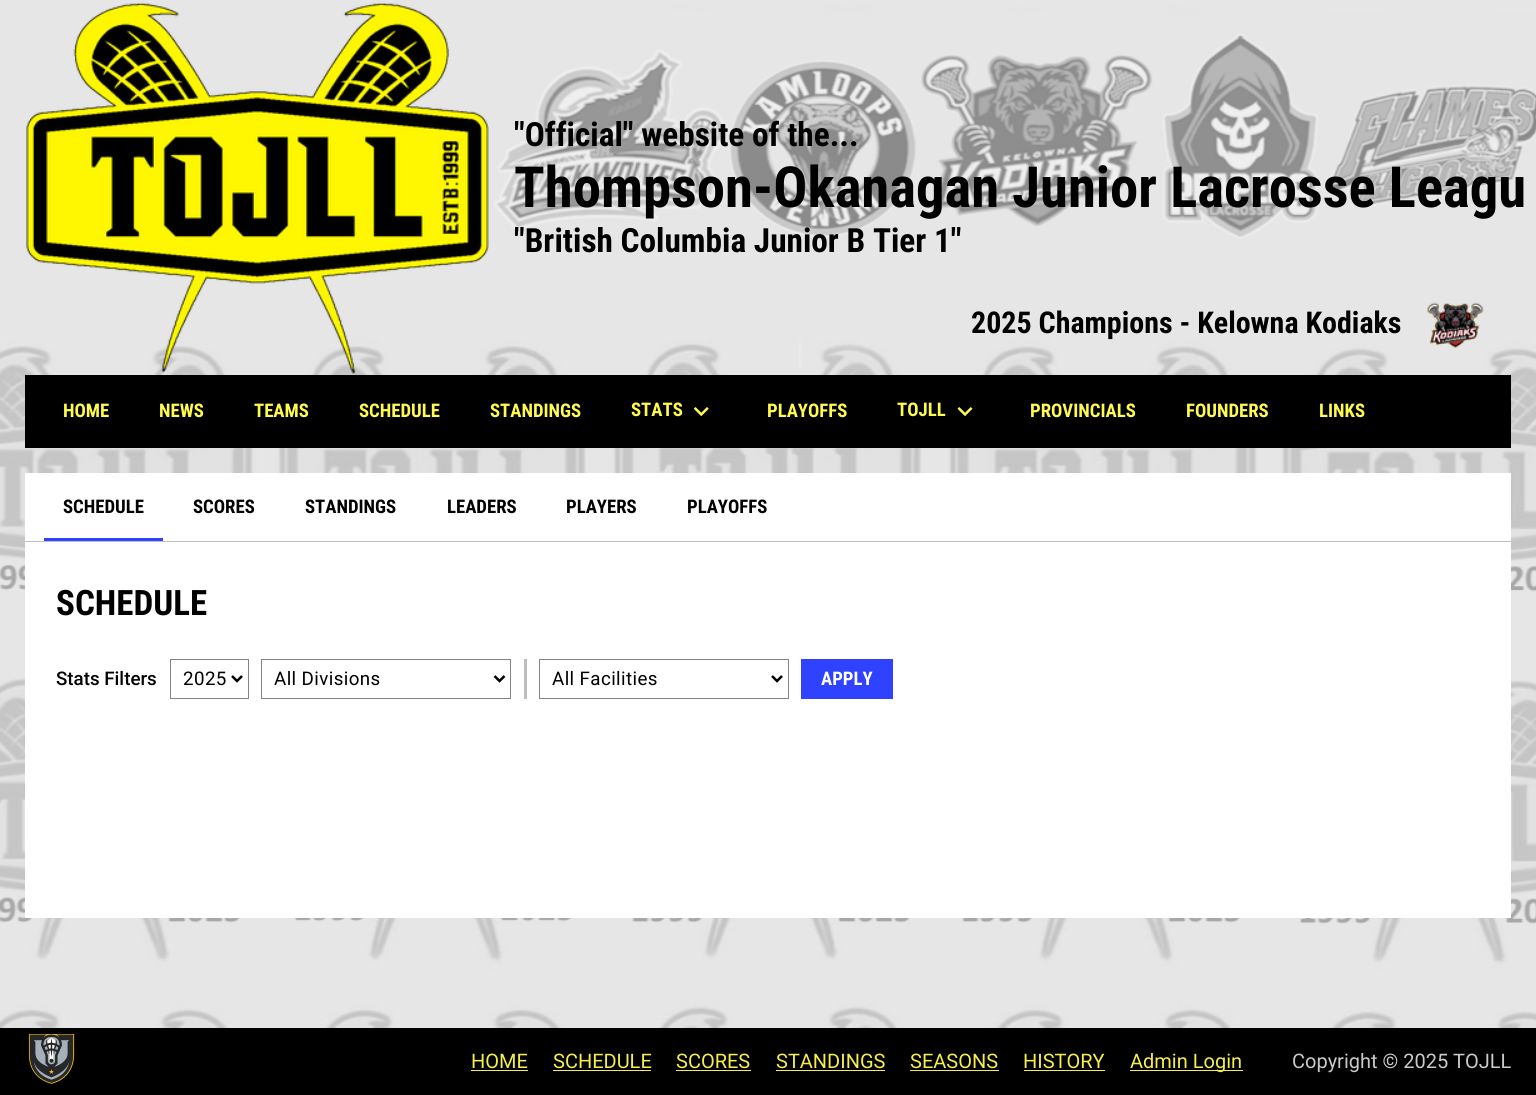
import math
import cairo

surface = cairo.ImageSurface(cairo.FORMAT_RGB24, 1536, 1095)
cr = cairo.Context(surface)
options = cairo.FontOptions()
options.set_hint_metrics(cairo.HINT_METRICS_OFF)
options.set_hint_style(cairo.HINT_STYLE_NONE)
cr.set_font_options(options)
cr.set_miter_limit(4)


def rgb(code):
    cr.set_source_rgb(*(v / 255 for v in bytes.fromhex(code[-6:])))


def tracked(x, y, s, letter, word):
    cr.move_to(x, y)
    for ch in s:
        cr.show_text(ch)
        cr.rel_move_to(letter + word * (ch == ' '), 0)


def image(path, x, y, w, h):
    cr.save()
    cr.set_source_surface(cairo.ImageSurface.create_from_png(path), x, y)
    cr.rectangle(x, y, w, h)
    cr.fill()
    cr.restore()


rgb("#ffffff")
cr.paint()
image("img/1.png", 0, 0, 1536, 1028)
image("img/2.png", 26, 2, 463, 372)
image("img/3.png", 1426, 302, 58, 46)
rgb("#000000")
cr.rectangle(25, 375, 1486, 73)
cr.fill()
image("img/4.png", 693, 407, 16, 10)
image("img/5.png", 957, 407, 16, 10)
for x, y, w, h, color in [
    (25, 473, 1486, 445, "#ffffff"),
    (25, 541, 1486, 1, "#bebebe"),
    (44, 538, 119, 3, "#2f42ff"),
]:
    rgb(color)
    cr.rectangle(x, y, w, h)
    cr.fill()
cr.rectangle(170.5, 659.5, 78, 39)
rgb("#838383")
cr.set_line_width(1)
cr.stroke()
cr.new_path()
cr.move_to(232, 676)
cr.line_to(237, 681)
cr.line_to(242, 676)
rgb("#000000")
cr.set_line_width(2.5)
cr.stroke()
cr.rectangle(261.5, 659.5, 249, 39)
rgb("#838383")
cr.set_line_width(1)
cr.stroke()
cr.new_path()
cr.move_to(494.5, 676)
cr.line_to(499.5, 681)
cr.line_to(504.5, 676)
rgb("#000000")
cr.set_line_width(2.5)
cr.stroke()
rgb("#bebebe")
cr.rectangle(524, 659, 3, 40)
cr.fill()
cr.rectangle(539.5, 659.5, 249, 39)
rgb("#838383")
cr.set_line_width(1)
cr.stroke()
cr.new_path()
cr.move_to(772, 676)
cr.line_to(777, 681)
cr.line_to(782, 676)
rgb("#000000")
cr.set_line_width(2.5)
cr.stroke()
rgb("#2f42ff")
cr.rectangle(801, 659, 92, 40)
cr.fill()
rgb("#000000")
cr.rectangle(0, 1028, 1536, 67)
cr.fill()
image("img/6.png", 28, 1034, 47, 50)
for x, y, w, h, color in [
    (471, 1070, 57, 1, "#f6ee4b"),
    (553, 1070, 98, 1, "#f6ee4b"),
    (676, 1070, 75, 1, "#f6ee4b"),
    (776, 1070, 109, 1, "#f6ee4b"),
    (910, 1070, 89, 1, "#f6ee4b"),
    (1024, 1070, 81, 1, "#f6ee4b"),
    (1130, 1070, 113, 1, "#f6ee4b"),
]:
    rgb(color)
    cr.rectangle(x, y, w, h)
    cr.fill()
cr.select_font_face("Roboto Condensed", cairo.FONT_SLANT_NORMAL, cairo.FONT_WEIGHT_BOLD)
cr.set_font_size(33.3)
rgb("#000000")
cr.move_to(514, 146)
cr.show_text("\"Official\" website of the...")
cr.set_font_size(56.7)
cr.move_to(514, 207)
cr.show_text("Thompson-Okanagan Junior Lacrosse Leagu")
cr.set_font_size(33.3)
cr.move_to(514, 252)
cr.show_text("\"British Columbia Junior B Tier 1\"")
cr.set_font_size(30)
cr.move_to(971, 333)
cr.show_text("2025 Champions - Kelowna Kodiaks")
cr.set_font_size(18.75)
rgb("#fffa4e")
for x, y, s in [
    (63, 417, "HOME"),
    (159, 417, "NEWS"),
    (254, 417, "TEAMS"),
    (359, 417, "SCHEDULE"),
    (490, 417, "STANDINGS"),
    (631, 416, "STATS"),
    (767, 417, "PLAYOFFS"),
    (897, 416, "TOJLL"),
    (1030, 417, "PROVINCIALS"),
    (1186, 417, "FOUNDERS"),
    (1319, 417, "LINKS"),
]:
    cr.move_to(x, y)
    cr.show_text(s)
rgb("#000000")
for x, y, s in [
    (63, 513, "SCHEDULE"),
    (193, 513, "SCORES"),
    (305, 513, "STANDINGS"),
    (447, 513, "LEADERS"),
    (566, 513, "PLAYERS"),
    (687, 513, "PLAYOFFS"),
]:
    cr.move_to(x, y)
    cr.show_text(s)
cr.set_font_size(35)
cr.move_to(56, 615)
cr.show_text("SCHEDULE")
cr.select_font_face("Roboto Medium")
cr.set_font_size(18.75)
cr.move_to(56, 685)
cr.show_text("Stats Filters")
cr.select_font_face("Roboto")
for x, y, s in [
    (183, 685, "2025"),
    (274, 685, "All Divisions"),
    (552, 685, "All Facilities"),
]:
    tracked(x, y, s, 0.4, 0)
cr.select_font_face("Roboto Condensed", cairo.FONT_SLANT_NORMAL, cairo.FONT_WEIGHT_BOLD)
rgb("#ffffff")
cr.move_to(821, 685)
cr.show_text("APPLY")
cr.select_font_face("Roboto")
cr.set_font_size(20)
rgb("#f6ee4b")
for x, y, s in [
    (471, 1068, "HOME"),
    (553, 1068, "SCHEDULE"),
    (676, 1068, "SCORES"),
    (776, 1068, "STANDINGS"),
    (910, 1068, "SEASONS"),
    (1023, 1068, "HISTORY"),
    (1130, 1068, "Admin Login"),
]:
    cr.move_to(x, y)
    cr.show_text(s)
rgb("#cacaca")
cr.move_to(1292, 1068)
cr.show_text("Copyright © 2025 TOJLL")
surface.write_to_png("page.png")
